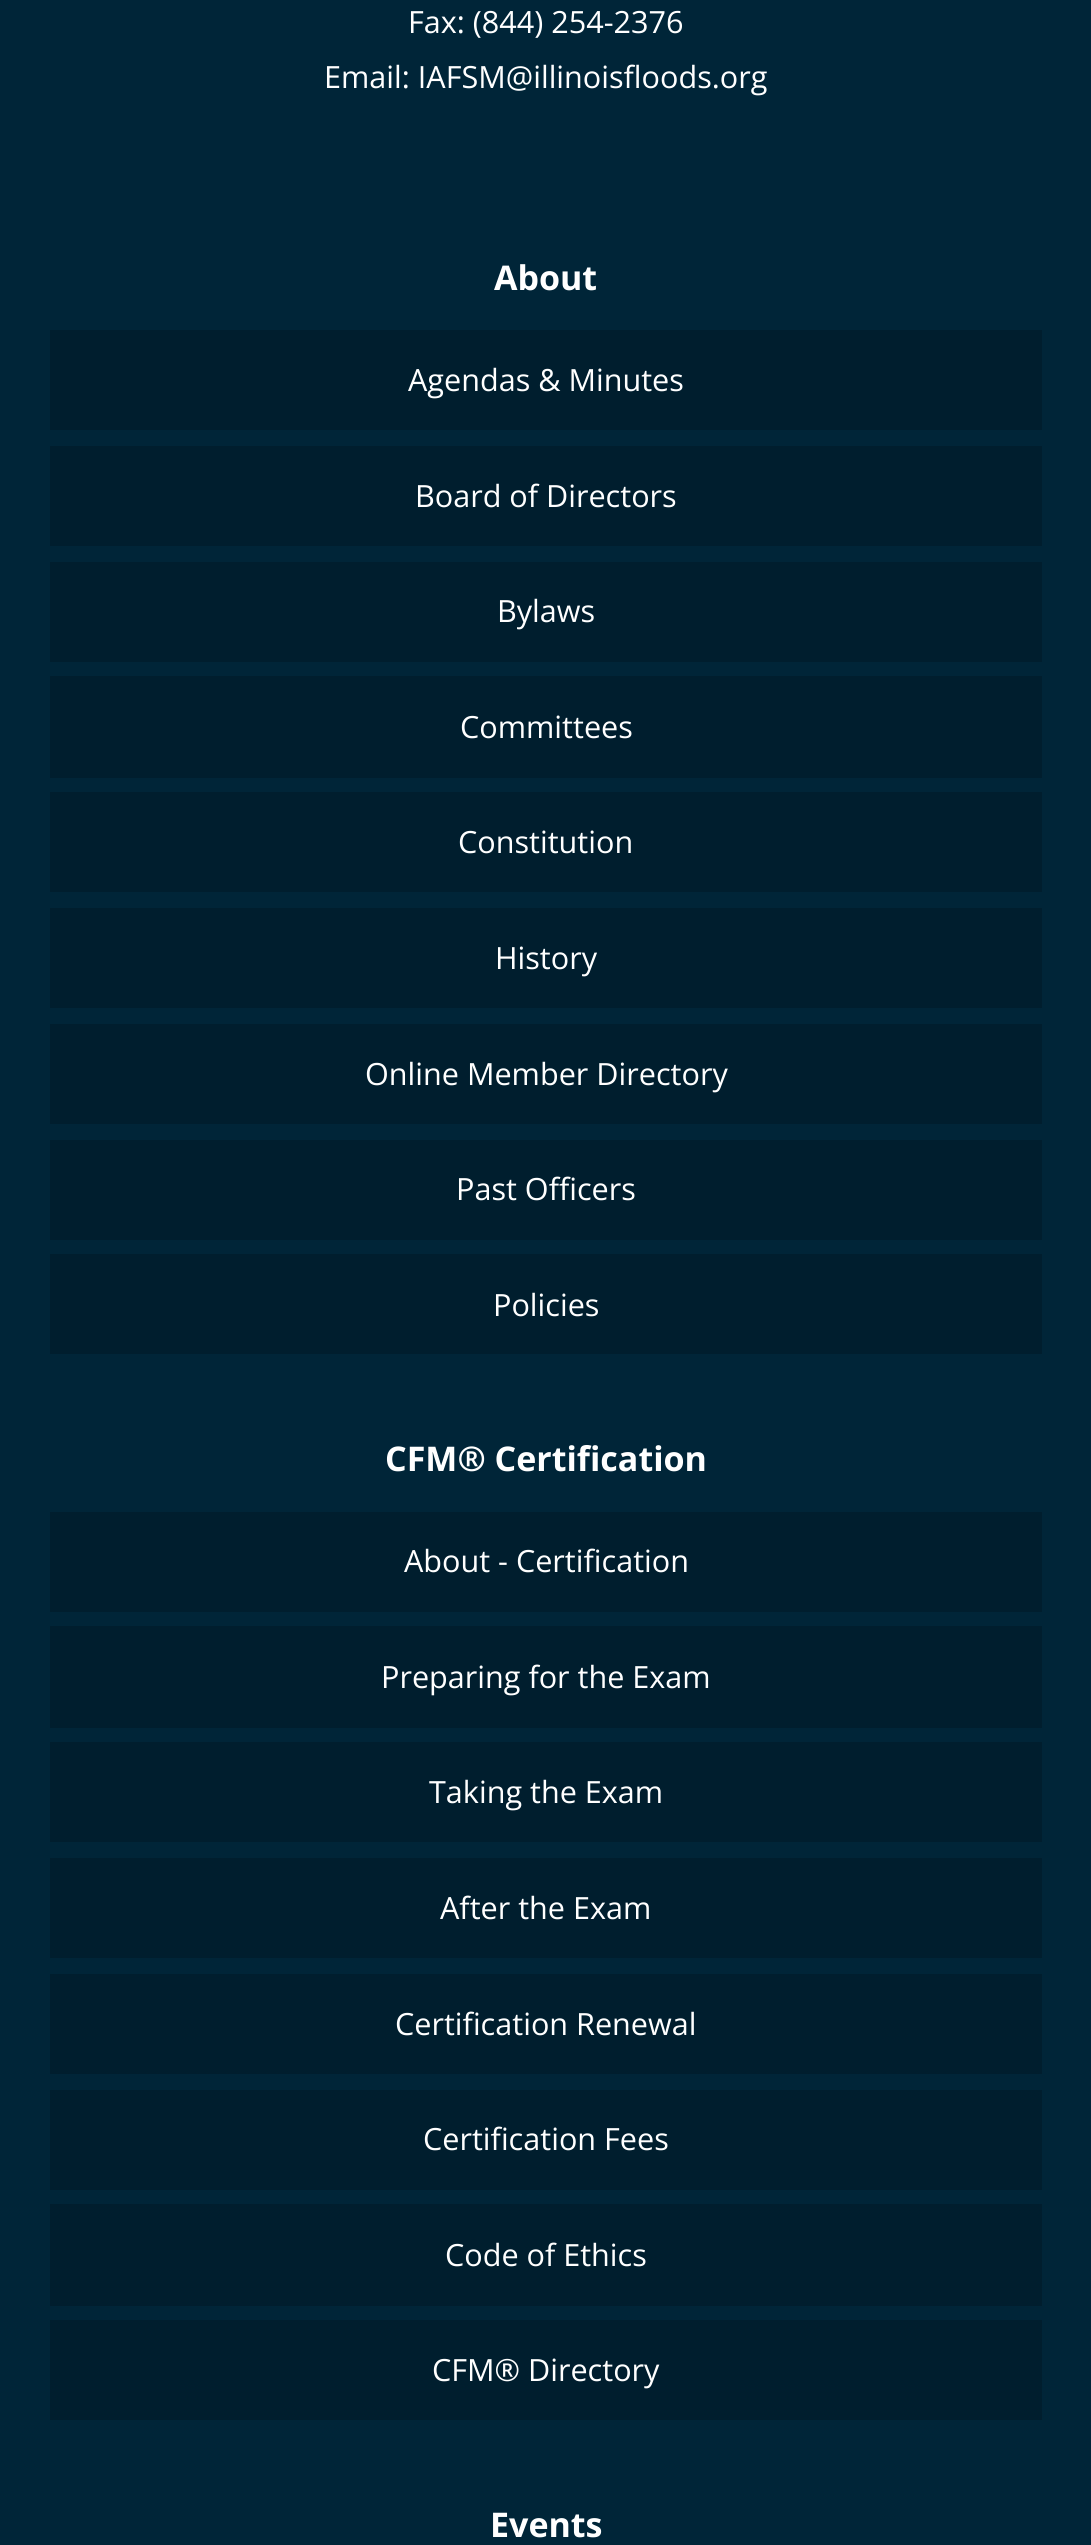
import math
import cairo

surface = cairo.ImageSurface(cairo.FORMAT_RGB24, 1091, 2545)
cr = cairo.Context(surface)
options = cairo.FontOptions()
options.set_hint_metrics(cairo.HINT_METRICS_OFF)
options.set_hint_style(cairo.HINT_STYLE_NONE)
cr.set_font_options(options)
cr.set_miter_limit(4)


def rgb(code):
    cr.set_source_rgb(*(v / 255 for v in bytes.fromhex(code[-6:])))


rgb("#002538")
cr.paint()
for x, y, w, h, color in [
    (50, 330, 992, 100, "#001e2e"),
    (50, 446, 992, 100, "#001e2e"),
    (50, 562, 992, 100, "#001e2e"),
    (50, 676, 992, 102, "#001e2e"),
    (50, 792, 992, 100, "#001e2e"),
    (50, 908, 992, 100, "#001e2e"),
    (50, 1024, 992, 100, "#001e2e"),
    (50, 1140, 992, 100, "#001e2e"),
    (50, 1254, 992, 100, "#001e2e"),
    (50, 1512, 992, 100, "#001e2e"),
    (50, 1626, 992, 102, "#001e2e"),
    (50, 1742, 992, 100, "#001e2e"),
    (50, 1858, 992, 100, "#001e2e"),
    (50, 1974, 992, 100, "#001e2e"),
    (50, 2090, 992, 100, "#001e2e"),
    (50, 2204, 992, 102, "#001e2e"),
    (50, 2320, 992, 100, "#001e2e"),
]:
    rgb(color)
    cr.rectangle(x, y, w, h)
    cr.fill()
cr.select_font_face("Open Sans")
cr.set_font_size(30.6)
rgb("#ffffff")
cr.move_to(408, 33)
cr.show_text("Fax: (844) 254-2376")
cr.move_to(324, 88)
cr.show_text("Email: IAFSM@illinoisfloods.org")
cr.select_font_face("Open Sans", cairo.FONT_SLANT_NORMAL, cairo.FONT_WEIGHT_BOLD)
cr.set_font_size(34)
cr.move_to(494, 290)
cr.show_text("About")
cr.select_font_face("Open Sans")
cr.set_font_size(30.6)
for x, y, s in [
    (408, 391, "Agendas & Minutes"),
    (415, 507, "Board of Directors"),
    (497, 622, "Bylaws"),
    (460, 738, "Committees"),
    (458, 853, "Constitution"),
    (495, 969, "History"),
    (365, 1085, "Online Member Directory"),
    (456, 1200, "Past Officers"),
    (493, 1316, "Policies"),
]:
    cr.move_to(x, y)
    cr.show_text(s)
cr.select_font_face("Open Sans", cairo.FONT_SLANT_NORMAL, cairo.FONT_WEIGHT_BOLD)
cr.set_font_size(34)
cr.move_to(385, 1471)
cr.show_text("CFM® Certification")
cr.select_font_face("Open Sans")
cr.set_font_size(30.6)
for x, y, s in [
    (404, 1572, "About - Certification"),
    (381, 1688, "Preparing for the Exam"),
    (429, 1803, "Taking the Exam"),
    (440, 1919, "After the Exam"),
    (395, 2035, "Certification Renewal"),
    (423, 2150, "Certification Fees"),
    (445, 2266, "Code of Ethics"),
    (432, 2381, "CFM® Directory"),
]:
    cr.move_to(x, y)
    cr.show_text(s)
cr.select_font_face("Open Sans", cairo.FONT_SLANT_NORMAL, cairo.FONT_WEIGHT_BOLD)
cr.set_font_size(34)
cr.move_to(490, 2537)
cr.show_text("Events")
surface.write_to_png("page.png")
